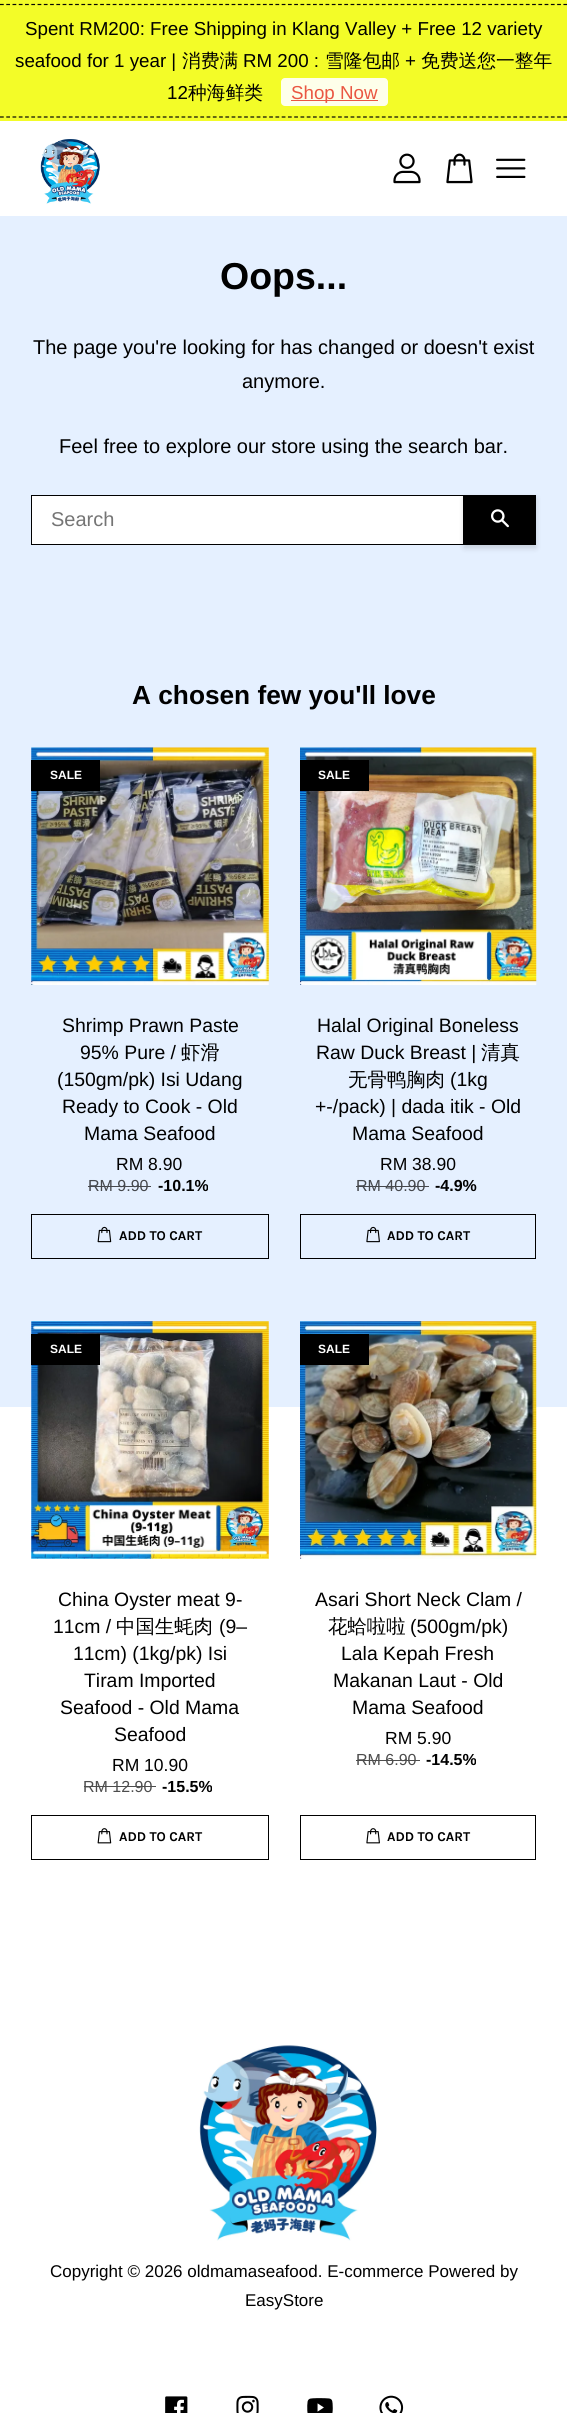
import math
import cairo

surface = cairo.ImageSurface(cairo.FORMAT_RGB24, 567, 2413)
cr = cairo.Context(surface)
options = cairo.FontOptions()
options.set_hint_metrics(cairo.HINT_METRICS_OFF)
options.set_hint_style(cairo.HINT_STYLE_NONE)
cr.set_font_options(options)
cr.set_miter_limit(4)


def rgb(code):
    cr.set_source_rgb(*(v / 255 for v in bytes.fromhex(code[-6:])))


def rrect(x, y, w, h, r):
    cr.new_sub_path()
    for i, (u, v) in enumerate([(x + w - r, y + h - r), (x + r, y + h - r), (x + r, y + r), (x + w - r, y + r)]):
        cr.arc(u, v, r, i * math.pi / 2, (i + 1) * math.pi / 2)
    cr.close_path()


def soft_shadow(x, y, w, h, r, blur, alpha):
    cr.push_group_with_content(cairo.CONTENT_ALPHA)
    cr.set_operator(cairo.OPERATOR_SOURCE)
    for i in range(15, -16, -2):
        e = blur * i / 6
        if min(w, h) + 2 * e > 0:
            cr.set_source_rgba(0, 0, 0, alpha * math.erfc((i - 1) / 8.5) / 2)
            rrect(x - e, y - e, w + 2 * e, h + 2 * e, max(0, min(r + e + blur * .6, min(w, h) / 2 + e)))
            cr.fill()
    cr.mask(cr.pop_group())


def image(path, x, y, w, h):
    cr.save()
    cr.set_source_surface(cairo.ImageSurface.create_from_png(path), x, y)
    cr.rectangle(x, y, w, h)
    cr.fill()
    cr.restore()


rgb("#ffffff")
cr.paint()
rgb("#e5f0ff")
cr.rectangle(0, 216, 567, 1191)
cr.fill()
rgb("#f3fc28")
cr.rectangle(0, 0, 567, 121)
cr.fill()
cr.new_path()
cr.move_to(0, 4.5)
cr.line_to(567.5, 4.5)
rgb("#050505")
cr.set_line_width(1.2)
cr.set_dash([3.75, 2.51])
cr.stroke()
cr.new_path()
cr.move_to(0, 117)
cr.line_to(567.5, 117)
cr.stroke()
rgb("#feffea")
rrect(281, 78, 107, 28, 4)
cr.fill()
rgb("#ea5742")
cr.rectangle(291, 100, 87, 1)
cr.fill()
image("img/1.png", 40, 139, 60, 65)
image("img/2.png", 393, 153, 28, 31)
image("img/3.png", 446, 153, 27, 31)
image("img/4.png", 496, 158, 30, 20)
rgb("#ffffff")
cr.rectangle(31.5, 495.5, 432, 49)
cr.fill_preserve()
rgb("#000000")
cr.set_line_width(1)
cr.set_dash([])
cr.stroke()
rgb("#000000")
soft_shadow(464, 498, 72, 50, 0, 3, 0.15)
rgb("#000000")
cr.rectangle(464, 495, 72, 50)
cr.fill()
image("img/5.png", 491, 509, 18, 19)
image("img/6.png", 31, 747, 238, 238)
cr.rectangle(31, 760, 69, 31)
cr.fill()
rgb("#45484d")
cr.rectangle(88, 1186, 63, 1)
cr.fill()
cr.rectangle(31.5, 1214.5, 237, 44)
rgb("#000000")
cr.stroke()
image("img/7.png", 97, 1226, 15, 17)
image("img/8.png", 300, 747, 237, 238)
cr.rectangle(300, 760, 69, 31)
cr.fill()
rgb("#45484d")
cr.rectangle(356, 1186, 73, 1)
cr.fill()
cr.rectangle(300.5, 1214.5, 235, 44)
rgb("#000000")
cr.stroke()
image("img/9.png", 366, 1226, 14, 17)
image("img/10.png", 31, 1321, 238, 238)
cr.rectangle(31, 1334, 69, 31)
cr.fill()
rgb("#4d4d4d")
cr.rectangle(84, 1786, 72, 1)
cr.fill()
cr.rectangle(31.5, 1815.5, 237, 44)
rgb("#000000")
cr.stroke()
image("img/11.png", 97, 1828, 15, 16)
image("img/12.png", 300, 1321, 237, 238)
cr.rectangle(300, 1334, 69, 31)
cr.fill()
rgb("#4d4d4d")
cr.rectangle(356, 1760, 64, 1)
cr.fill()
cr.rectangle(300.5, 1815.5, 235, 44)
rgb("#000000")
cr.stroke()
image("img/13.png", 366, 1828, 14, 16)
image("img/14.png", 199, 2045, 178, 196)
image("img/15.png", 165, 2396, 23, 17)
image("img/16.png", 236, 2395, 23, 18)
image("img/17.png", 307, 2398, 26, 15)
image("img/18.png", 379, 2395, 25, 18)
cr.select_font_face("Liberation Sans")
cr.set_font_size(18.75)
cr.move_to(25, 35)
cr.show_text("Spent RM200: Free Shipping in Klang Valley + Free 12 variety")
cr.move_to(15, 67)
cr.show_text("seafood for 1 year |")
cr.select_font_face("WenQuanYi Zen Hei Medium")
cr.move_to(182, 67)
cr.show_text("消费满")
cr.select_font_face("Liberation Sans")
cr.move_to(243, 67)
cr.show_text("RM 200 :")
cr.select_font_face("WenQuanYi Zen Hei Medium")
cr.move_to(325, 67)
cr.show_text("雪隆包邮")
cr.select_font_face("Liberation Sans")
cr.move_to(405, 67)
cr.show_text("+")
cr.select_font_face("WenQuanYi Zen Hei Medium")
cr.move_to(421, 67)
cr.show_text("免费送您一整年")
cr.select_font_face("Liberation Sans")
cr.move_to(167, 99)
cr.show_text("12")
cr.select_font_face("WenQuanYi Zen Hei Medium")
cr.move_to(188, 99)
cr.show_text("种海鲜类")
cr.select_font_face("Liberation Sans")
rgb("#ea5742")
cr.move_to(291, 99)
cr.show_text("Shop Now")
cr.select_font_face("Liberation Sans", cairo.FONT_SLANT_NORMAL, cairo.FONT_WEIGHT_BOLD)
cr.set_font_size(37.5)
rgb("#000000")
cr.move_to(220, 289)
cr.show_text("Oops...")
cr.select_font_face("Liberation Sans")
cr.set_font_size(20)
for x, y, s in [
    (33, 354, "The page you're looking for has changed or doesn't exist"),
    (242, 388, "anymore."),
    (59, 453, "Feel free to explore our store using the search bar."),
]:
    cr.move_to(x, y)
    cr.show_text(s)
rgb("#757575")
cr.move_to(51, 526)
cr.show_text("Search")
cr.select_font_face("Liberation Sans", cairo.FONT_SLANT_NORMAL, cairo.FONT_WEIGHT_BOLD)
cr.set_font_size(26.25)
rgb("#000000")
cr.move_to(132, 704)
cr.show_text("A chosen few you'll love")
cr.set_font_size(12)
rgb("#ffffff")
cr.move_to(50, 779)
cr.show_text("SALE")
cr.select_font_face("Liberation Sans")
cr.set_font_size(19.4)
rgb("#000000")
cr.move_to(62, 1032)
cr.show_text("Shrimp Prawn Paste")
cr.move_to(80, 1059)
cr.show_text("95% Pure /")
cr.select_font_face("WenQuanYi Zen Hei Medium")
cr.move_to(181, 1059)
cr.show_text("虾滑")
cr.select_font_face("Liberation Sans")
for x, y, s in [
    (57, 1086, "(150gm/pk) Isi Udang"),
    (62, 1113, "Ready to Cook - Old"),
    (84, 1140, "Mama Seafood"),
]:
    cr.move_to(x, y)
    cr.show_text(s)
cr.set_font_size(17.5)
cr.move_to(116, 1170)
cr.show_text("RM 8.90")
cr.set_font_size(16)
rgb("#45484d")
cr.move_to(88, 1191)
cr.show_text("RM 9.90")
cr.select_font_face("Liberation Sans", cairo.FONT_SLANT_NORMAL, cairo.FONT_WEIGHT_BOLD)
rgb("#000000")
cr.move_to(158, 1191)
cr.show_text("-10.1%")
cr.select_font_face("Karla", cairo.FONT_SLANT_NORMAL, cairo.FONT_WEIGHT_BOLD)
cr.set_font_size(13.5)
cr.move_to(119, 1240)
cr.show_text("ADD TO CART")
cr.select_font_face("Liberation Sans", cairo.FONT_SLANT_NORMAL, cairo.FONT_WEIGHT_BOLD)
cr.set_font_size(12)
rgb("#ffffff")
cr.move_to(318, 779)
cr.show_text("SALE")
cr.select_font_face("Liberation Sans")
cr.set_font_size(19.4)
rgb("#000000")
cr.move_to(317, 1032)
cr.show_text("Halal Original Boneless")
cr.move_to(316, 1059)
cr.show_text("Raw Duck Breast |")
cr.select_font_face("WenQuanYi Zen Hei Medium")
cr.move_to(481, 1059)
cr.show_text("清真")
cr.move_to(348, 1086)
cr.show_text("无骨鸭胸肉")
cr.select_font_face("Liberation Sans")
for x, y, s in [
    (450, 1086, "(1kg"),
    (315, 1113, "+-/pack) | dada itik - Old"),
    (352, 1140, "Mama Seafood"),
]:
    cr.move_to(x, y)
    cr.show_text(s)
cr.set_font_size(17.5)
cr.move_to(380, 1170)
cr.show_text("RM 38.90")
cr.set_font_size(16)
rgb("#45484d")
cr.move_to(356, 1191)
cr.show_text("RM 40.90")
cr.select_font_face("Liberation Sans", cairo.FONT_SLANT_NORMAL, cairo.FONT_WEIGHT_BOLD)
rgb("#000000")
cr.move_to(435, 1191)
cr.show_text("-4.9%")
cr.select_font_face("Karla", cairo.FONT_SLANT_NORMAL, cairo.FONT_WEIGHT_BOLD)
cr.set_font_size(13.5)
cr.move_to(387, 1240)
cr.show_text("ADD TO CART")
cr.select_font_face("Liberation Sans", cairo.FONT_SLANT_NORMAL, cairo.FONT_WEIGHT_BOLD)
cr.set_font_size(12)
rgb("#ffffff")
cr.move_to(50, 1353)
cr.show_text("SALE")
cr.select_font_face("Liberation Sans")
cr.set_font_size(19.4)
rgb("#000000")
cr.move_to(58, 1606)
cr.show_text("China Oyster meat 9-")
cr.move_to(53, 1633)
cr.show_text("11cm /")
cr.select_font_face("WenQuanYi Zen Hei Medium")
cr.move_to(116, 1633)
cr.show_text("中国生蚝肉")
cr.select_font_face("Liberation Sans")
for x, y, s in [
    (219, 1633, "(9–"),
    (73, 1660, "11cm) (1kg/pk) Isi"),
    (84, 1687, "Tiram Imported"),
    (60, 1714, "Seafood - Old Mama"),
    (114, 1741, "Seafood"),
]:
    cr.move_to(x, y)
    cr.show_text(s)
cr.set_font_size(17.5)
cr.move_to(112, 1771)
cr.show_text("RM 10.90")
cr.set_font_size(16)
rgb("#4d4d4d")
cr.move_to(83, 1792)
cr.show_text("RM 12.90")
cr.select_font_face("Liberation Sans", cairo.FONT_SLANT_NORMAL, cairo.FONT_WEIGHT_BOLD)
rgb("#000000")
cr.move_to(162, 1792)
cr.show_text("-15.5%")
cr.select_font_face("Karla", cairo.FONT_SLANT_NORMAL, cairo.FONT_WEIGHT_BOLD)
cr.set_font_size(13.5)
cr.move_to(119, 1841)
cr.show_text("ADD TO CART")
cr.select_font_face("Liberation Sans", cairo.FONT_SLANT_NORMAL, cairo.FONT_WEIGHT_BOLD)
cr.set_font_size(12)
rgb("#ffffff")
cr.move_to(318, 1353)
cr.show_text("SALE")
cr.select_font_face("Liberation Sans")
cr.set_font_size(19.4)
rgb("#000000")
cr.move_to(315, 1606)
cr.show_text("Asari Short Neck Clam /")
cr.select_font_face("WenQuanYi Zen Hei Medium")
cr.move_to(328, 1633)
cr.show_text("花蛤啦啦")
cr.select_font_face("Liberation Sans")
for x, y, s in [
    (410, 1633, "(500gm/pk)"),
    (341, 1660, "Lala Kepah Fresh"),
    (333, 1687, "Makanan Laut - Old"),
    (352, 1714, "Mama Seafood"),
]:
    cr.move_to(x, y)
    cr.show_text(s)
cr.set_font_size(17.5)
cr.move_to(385, 1744)
cr.show_text("RM 5.90")
cr.set_font_size(16)
rgb("#4d4d4d")
cr.move_to(356, 1765)
cr.show_text("RM 6.90")
cr.select_font_face("Liberation Sans", cairo.FONT_SLANT_NORMAL, cairo.FONT_WEIGHT_BOLD)
rgb("#000000")
cr.move_to(426, 1765)
cr.show_text("-14.5%")
cr.select_font_face("Karla", cairo.FONT_SLANT_NORMAL, cairo.FONT_WEIGHT_BOLD)
cr.set_font_size(13.5)
cr.move_to(387, 1841)
cr.show_text("ADD TO CART")
cr.select_font_face("Liberation Sans")
cr.set_font_size(17)
cr.move_to(50, 2277)
cr.show_text("Copyright © 2026 oldmamaseafood. E-commerce Powered by")
cr.move_to(245, 2306)
cr.show_text("EasyStore")
surface.write_to_png("page.png")
